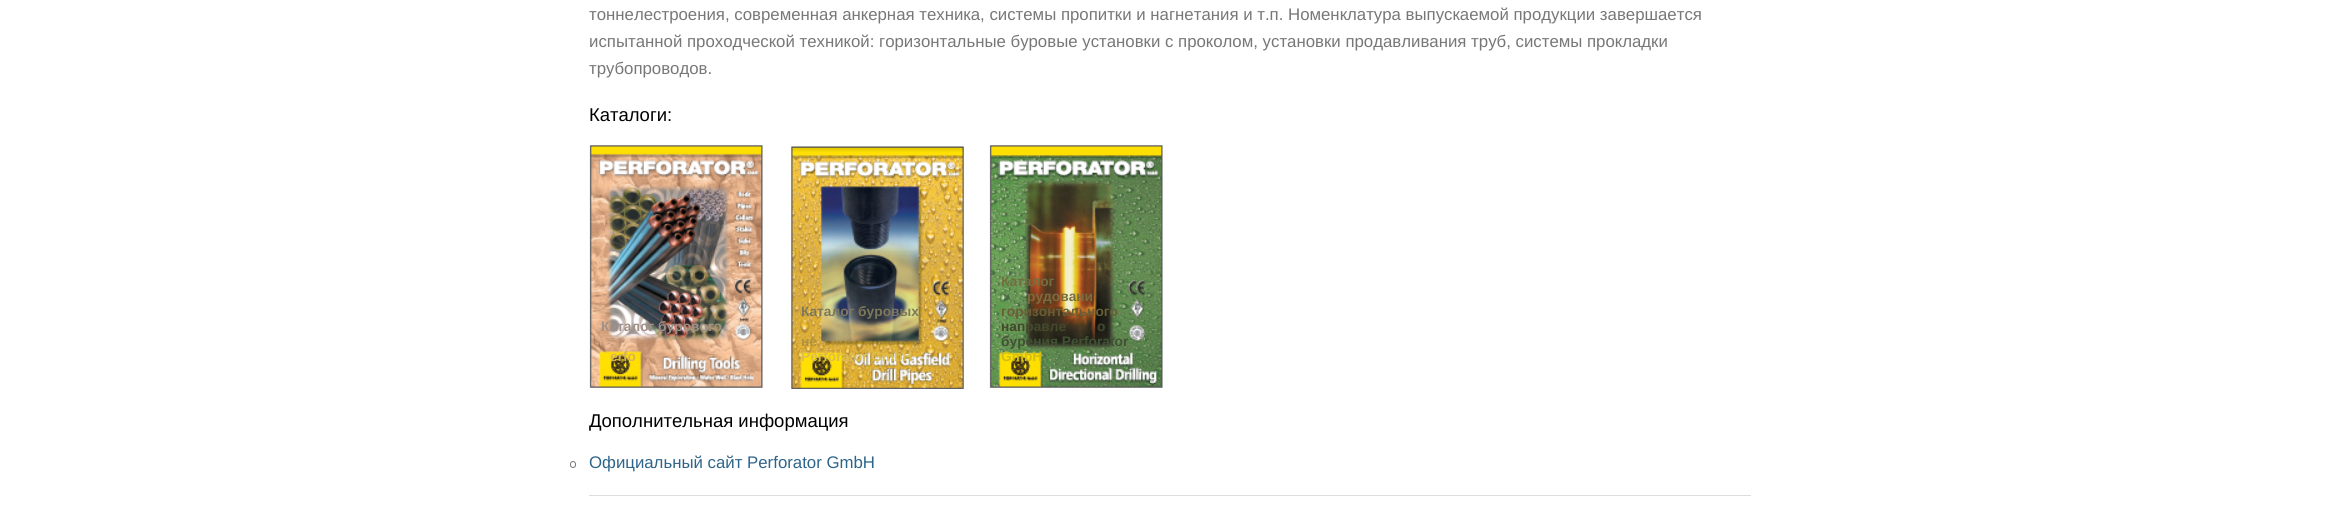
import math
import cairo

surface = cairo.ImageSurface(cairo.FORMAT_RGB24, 2339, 521)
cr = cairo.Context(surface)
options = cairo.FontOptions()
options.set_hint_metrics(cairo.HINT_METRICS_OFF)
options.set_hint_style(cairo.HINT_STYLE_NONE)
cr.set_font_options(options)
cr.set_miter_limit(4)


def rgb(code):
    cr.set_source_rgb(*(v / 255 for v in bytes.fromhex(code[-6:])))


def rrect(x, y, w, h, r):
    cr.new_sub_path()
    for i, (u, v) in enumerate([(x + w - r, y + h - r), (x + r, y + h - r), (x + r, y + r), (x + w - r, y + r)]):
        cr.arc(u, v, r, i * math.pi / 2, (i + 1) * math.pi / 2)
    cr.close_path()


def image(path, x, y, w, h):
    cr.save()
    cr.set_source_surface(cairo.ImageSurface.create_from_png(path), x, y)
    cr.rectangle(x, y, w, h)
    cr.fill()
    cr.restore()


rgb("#ffffff")
cr.paint()
image("img/1.png", 589, 145, 174, 243)
image("img/2.png", 791, 146, 173, 243)
image("img/3.png", 989, 145, 174, 243)
rrect(570.5, 461.5, 5, 6, 2.5)
rgb("#777777")
cr.set_line_width(1)
cr.stroke()
rgb("#dddddd")
cr.rectangle(589, 495, 1162, 1)
cr.fill()
cr.select_font_face("Liberation Sans")
cr.set_font_size(16.8)
rgb("#777777")
for x, y, s in [
    (589, 20, "тоннелестроения, современная анкерная техника, системы пропитки и нагнетания и т.п. Номенклатура выпускаемой продукции завершается"),
    (589, 47, "испытанной проходческой техникой: горизонтальные буровые установки с проколом, установки продавливания труб, системы прокладки"),
    (589, 74, "трубопроводов."),
]:
    cr.move_to(x, y)
    cr.show_text(s)
cr.set_font_size(18.5)
rgb("#000000")
cr.move_to(589, 121)
cr.show_text("Каталоги:")
cr.select_font_face("Liberation Sans", cairo.FONT_SLANT_NORMAL, cairo.FONT_WEIGHT_BOLD)
cr.set_font_size(13.75)
rgb("#a09085")
cr.move_to(601, 331)
cr.show_text("Каталог бурового")
rgb("#d8b25d")
cr.move_to(610, 361)
cr.show_text("erfo")
rgb("#7d785b")
cr.move_to(801, 316)
cr.show_text("Каталог буровых")
rgb("#af913f")
cr.move_to(801, 346)
cr.show_text("не")
rgb("#dbbe4d")
cr.move_to(801, 361)
cr.show_text("Perforator GmbH")
rgb("#726e3e")
cr.move_to(1001, 286)
cr.show_text("Каталог")
rgb("#796d3f")
cr.move_to(1027, 301)
cr.show_text("рудовани")
rgb("#695e34")
cr.move_to(1001, 316)
cr.show_text("горизонтального")
rgb("#44492c")
cr.move_to(1001, 331)
cr.show_text("направле")
cr.move_to(1097, 331)
cr.show_text("о")
rgb("#415134")
cr.move_to(1001, 346)
cr.show_text("бурения Perforator")
rgb("#d1bf13")
cr.move_to(1001, 361)
cr.show_text("GmbH")
cr.select_font_face("Liberation Sans")
cr.set_font_size(18.5)
rgb("#000000")
cr.move_to(589, 427)
cr.show_text("Дополнительная информация")
cr.set_font_size(16.8)
rgb("#2d648a")
cr.move_to(589, 468)
cr.show_text("Официальный сайт Perforator GmbH")
surface.write_to_png("page.png")
